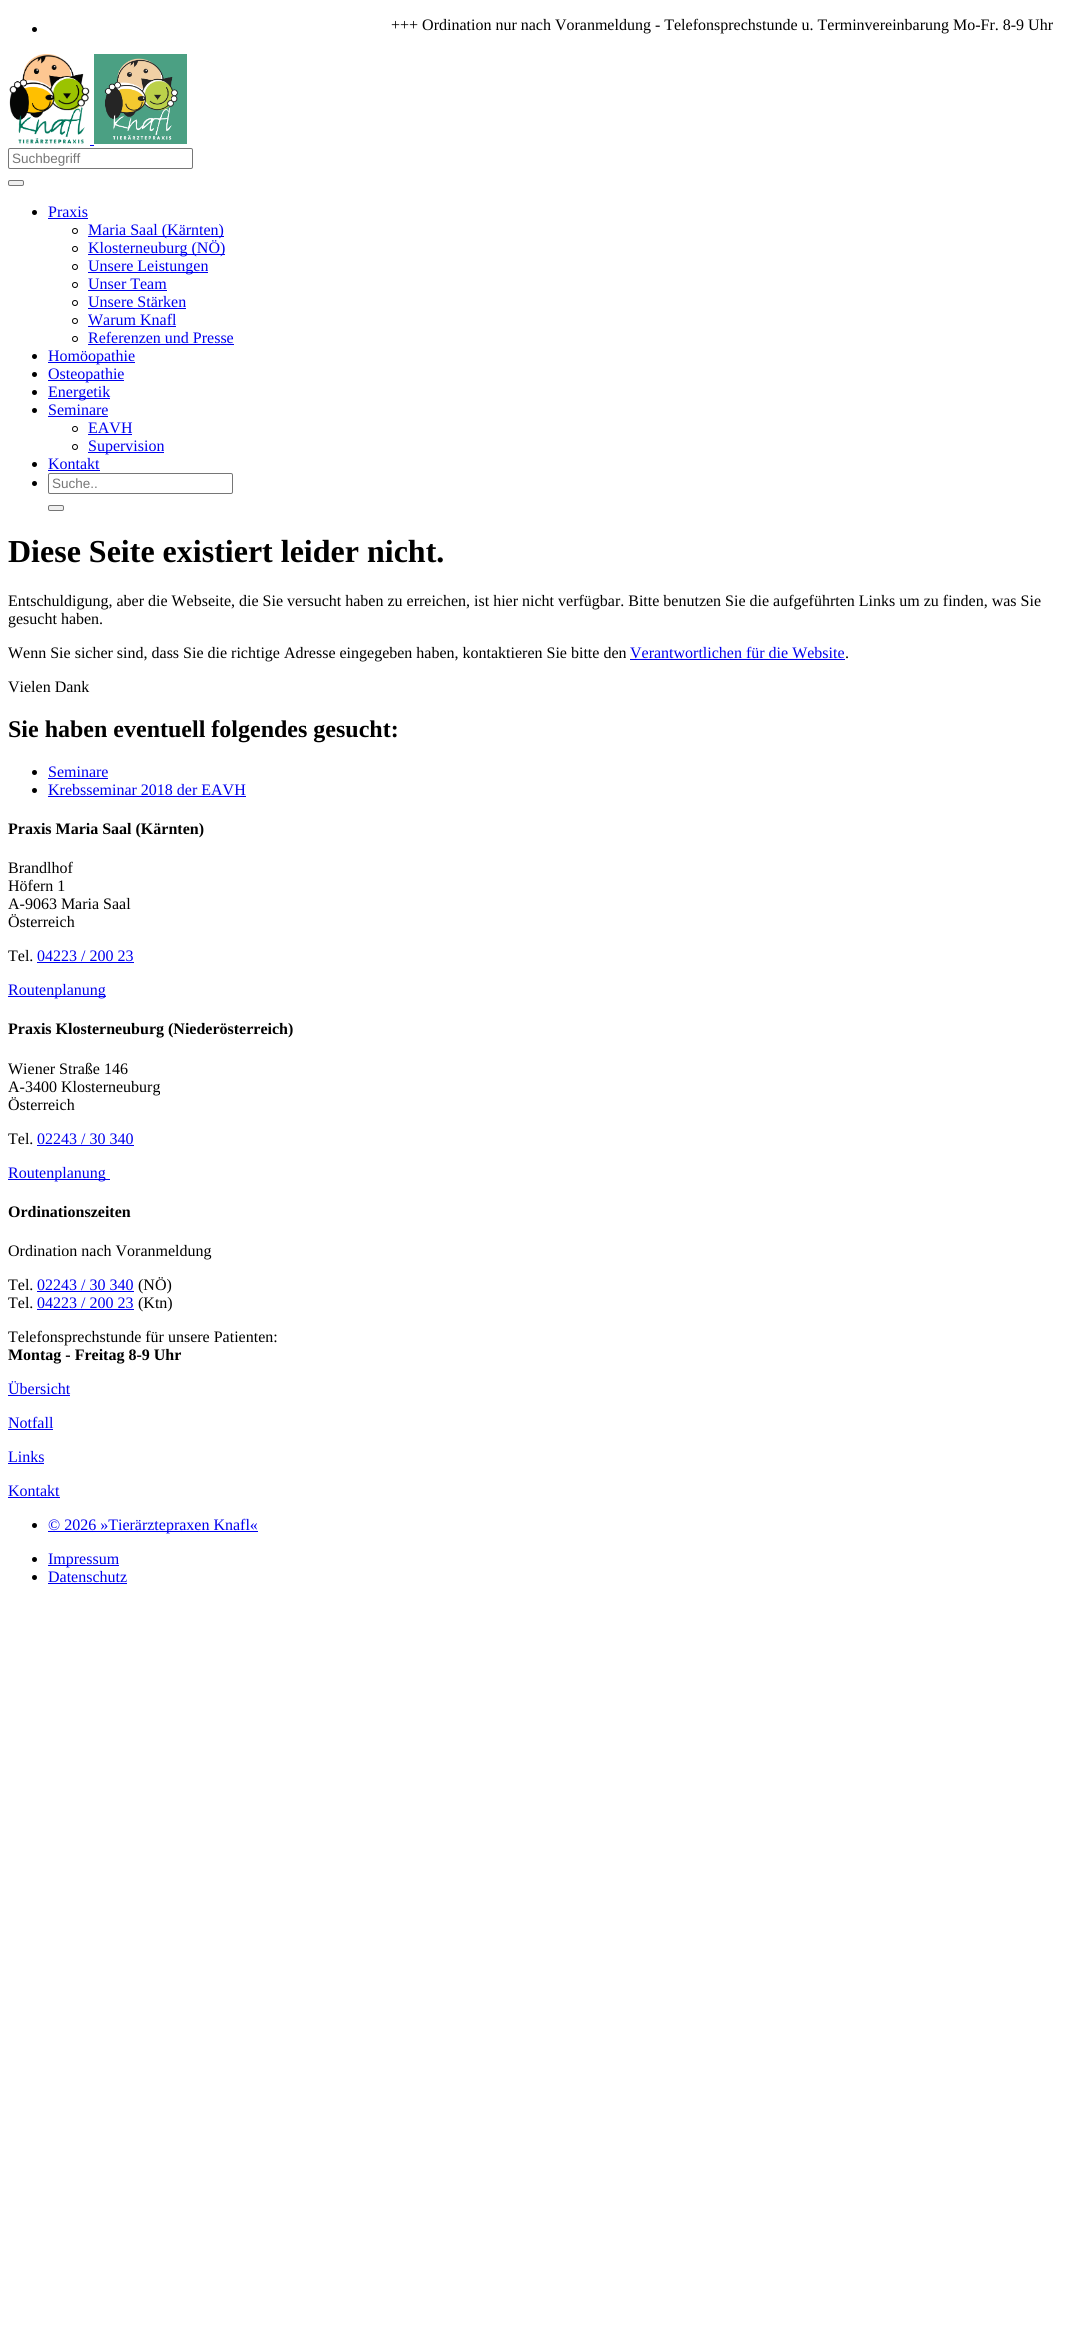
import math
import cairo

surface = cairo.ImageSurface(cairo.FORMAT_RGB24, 1068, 2327)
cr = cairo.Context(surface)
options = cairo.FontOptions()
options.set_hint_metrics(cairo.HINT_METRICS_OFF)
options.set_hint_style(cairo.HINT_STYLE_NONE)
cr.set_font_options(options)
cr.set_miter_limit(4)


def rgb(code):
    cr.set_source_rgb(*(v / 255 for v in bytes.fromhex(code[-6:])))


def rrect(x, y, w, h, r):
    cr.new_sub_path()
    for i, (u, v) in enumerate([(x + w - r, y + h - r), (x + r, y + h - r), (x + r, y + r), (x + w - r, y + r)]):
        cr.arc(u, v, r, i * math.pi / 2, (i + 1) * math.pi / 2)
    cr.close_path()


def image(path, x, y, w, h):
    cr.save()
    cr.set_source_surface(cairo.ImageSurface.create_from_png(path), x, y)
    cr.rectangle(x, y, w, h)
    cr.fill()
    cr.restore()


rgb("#ffffff")
cr.paint()
rgb("#000000")
cr.arc(34.5, 29.5, 2.5, 0, 2 * math.pi)
cr.fill()
image("img/1.png", 9, 54, 81, 90)
image("img/2.png", 94, 54, 93, 90)
rgb("#0000ee")
cr.rectangle(90, 145, 4, 1)
cr.fill()
rrect(8.5, 148.5, 184, 20, 1.5)
rgb("#767676")
cr.set_line_width(1)
cr.stroke()
rgb("#efefef")
rrect(8.5, 180.5, 15, 5, 1.5)
cr.fill_preserve()
rgb("#767676")
cr.stroke()
rgb("#000000")
cr.arc(34.5, 212.5, 2.5, 0, 2 * math.pi)
cr.fill()
rgb("#0000ee")
cr.rectangle(48, 218, 40, 1)
cr.fill()
cr.arc(75, 231, 2.5, 0, 2 * math.pi)
rgb("#000000")
cr.stroke()
rgb("#0000ee")
cr.rectangle(88, 236, 136, 1)
cr.fill()
cr.arc(75, 249, 2.5, 0, 2 * math.pi)
rgb("#000000")
cr.stroke()
rgb("#0000ee")
cr.rectangle(88, 254, 137, 1)
cr.fill()
cr.arc(75, 267, 2.5, 0, 2 * math.pi)
rgb("#000000")
cr.stroke()
rgb("#0000ee")
cr.rectangle(88, 272, 120, 1)
cr.fill()
cr.arc(75, 285, 2.5, 0, 2 * math.pi)
rgb("#000000")
cr.stroke()
rgb("#0000ee")
cr.rectangle(88, 290, 79, 1)
cr.fill()
cr.arc(75, 303, 2.5, 0, 2 * math.pi)
rgb("#000000")
cr.stroke()
rgb("#0000ee")
cr.rectangle(88, 308, 98, 1)
cr.fill()
cr.arc(75, 321, 2.5, 0, 2 * math.pi)
rgb("#000000")
cr.stroke()
rgb("#0000ee")
cr.rectangle(88, 326, 88, 1)
cr.fill()
cr.arc(75, 339, 2.5, 0, 2 * math.pi)
rgb("#000000")
cr.stroke()
rgb("#0000ee")
cr.rectangle(88, 344, 146, 1)
cr.fill()
rgb("#000000")
cr.arc(34.5, 356.5, 2.5, 0, 2 * math.pi)
cr.fill()
rgb("#0000ee")
cr.rectangle(48, 362, 87, 1)
cr.fill()
rgb("#000000")
cr.arc(34.5, 374.5, 2.5, 0, 2 * math.pi)
cr.fill()
rgb("#0000ee")
cr.rectangle(48, 380, 76, 1)
cr.fill()
rgb("#000000")
cr.arc(34.5, 392.5, 2.5, 0, 2 * math.pi)
cr.fill()
rgb("#0000ee")
cr.rectangle(48, 398, 62, 1)
cr.fill()
rgb("#000000")
cr.arc(34.5, 410.5, 2.5, 0, 2 * math.pi)
cr.fill()
rgb("#0000ee")
cr.rectangle(48, 416, 60, 1)
cr.fill()
cr.arc(75, 429, 2.5, 0, 2 * math.pi)
rgb("#000000")
cr.stroke()
rgb("#0000ee")
cr.rectangle(88, 434, 44, 1)
cr.fill()
cr.arc(75, 447, 2.5, 0, 2 * math.pi)
rgb("#000000")
cr.stroke()
rgb("#0000ee")
cr.rectangle(88, 452, 76, 1)
cr.fill()
rgb("#000000")
cr.arc(34.5, 464.5, 2.5, 0, 2 * math.pi)
cr.fill()
rgb("#0000ee")
cr.rectangle(48, 470, 52, 1)
cr.fill()
rgb("#000000")
cr.arc(34.5, 483.5, 2.5, 0, 2 * math.pi)
cr.fill()
rrect(48.5, 473.5, 184, 20, 1.5)
rgb("#767676")
cr.stroke()
rgb("#efefef")
rrect(48.5, 505.5, 15, 5, 1.5)
cr.fill_preserve()
rgb("#767676")
cr.stroke()
rgb("#0000ee")
cr.rectangle(630, 659, 215, 1)
cr.fill()
rgb("#000000")
cr.arc(34.5, 772.5, 2.5, 0, 2 * math.pi)
cr.fill()
rgb("#0000ee")
cr.rectangle(48, 778, 60, 1)
cr.fill()
rgb("#000000")
cr.arc(34.5, 790.5, 2.5, 0, 2 * math.pi)
cr.fill()
for x, y, w, h, color in [
    (48, 796, 198, 1, "#0000ee"),
    (37, 962, 97, 1, "#0000ee"),
    (8, 996, 98, 1, "#0000ee"),
    (37, 1145, 97, 1, "#0000ee"),
    (8, 1179, 102, 1, "#0000ee"),
    (37, 1291, 97, 1, "#0000ee"),
    (37, 1309, 97, 1, "#0000ee"),
    (8, 1395, 62, 1, "#0000ee"),
    (8, 1429, 45, 1, "#0000ee"),
    (8, 1463, 36, 1, "#0000ee"),
    (8, 1497, 52, 1, "#0000ee"),
]:
    rgb(color)
    cr.rectangle(x, y, w, h)
    cr.fill()
rgb("#000000")
cr.arc(34.5, 1525.5, 2.5, 0, 2 * math.pi)
cr.fill()
rgb("#0000ee")
cr.rectangle(48, 1531, 210, 1)
cr.fill()
rgb("#000000")
cr.arc(34.5, 1559.5, 2.5, 0, 2 * math.pi)
cr.fill()
rgb("#0000ee")
cr.rectangle(48, 1565, 71, 1)
cr.fill()
rgb("#000000")
cr.arc(34.5, 1577.5, 2.5, 0, 2 * math.pi)
cr.fill()
rgb("#0000ee")
cr.rectangle(48, 1583, 79, 1)
cr.fill()
cr.select_font_face("Liberation Serif")
cr.set_font_size(16)
rgb("#000000")
cr.move_to(391, 30)
cr.show_text("+++ Ordination nur nach Voranmeldung - Telefonsprechstunde u. Terminvereinbarung Mo-Fr. 8-9 Uhr")
cr.select_font_face("Liberation Sans")
cr.set_font_size(13.5)
rgb("#757575")
cr.move_to(12, 163)
cr.show_text("Suchbegriff")
cr.select_font_face("Liberation Serif")
cr.set_font_size(16)
rgb("#0000ee")
for x, y, s in [
    (48, 217, "Praxis"),
    (88, 235, "Maria Saal (Kärnten)"),
    (88, 253, "Klosterneuburg (NÖ)"),
    (88, 271, "Unsere Leistungen"),
    (88, 289, "Unser Team"),
    (88, 307, "Unsere Stärken"),
    (88, 325, "Warum Knafl"),
    (88, 343, "Referenzen und Presse"),
    (48, 361, "Homöopathie"),
    (48, 379, "Osteopathie"),
    (48, 397, "Energetik"),
    (48, 415, "Seminare"),
    (88, 433, "EAVH"),
    (88, 451, "Supervision"),
    (48, 469, "Kontakt"),
]:
    cr.move_to(x, y)
    cr.show_text(s)
cr.select_font_face("Liberation Sans")
cr.set_font_size(13.5)
rgb("#757575")
cr.move_to(52, 488)
cr.show_text("Suche..")
cr.select_font_face("Liberation Serif", cairo.FONT_SLANT_NORMAL, cairo.FONT_WEIGHT_BOLD)
cr.set_font_size(32)
rgb("#000000")
cr.move_to(8, 562)
cr.show_text("Diese Seite existiert leider nicht.")
cr.select_font_face("Liberation Serif")
cr.set_font_size(16)
for x, y, s in [
    (8, 606, "Entschuldigung, aber die Webseite, die Sie versucht haben zu erreichen, ist hier nicht verfügbar. Bitte benutzen Sie die aufgeführten Links um zu finden, was Sie"),
    (8, 624, "gesucht haben."),
    (8, 658, "Wenn Sie sicher sind, dass Sie die richtige Adresse eingegeben haben, kontaktieren Sie bitte den"),
]:
    cr.move_to(x, y)
    cr.show_text(s)
rgb("#0000ee")
cr.move_to(630, 658)
cr.show_text("Verantwortlichen für die Website")
rgb("#000000")
cr.move_to(845, 658)
cr.show_text(".")
cr.move_to(8, 692)
cr.show_text("Vielen Dank")
cr.select_font_face("Liberation Serif", cairo.FONT_SLANT_NORMAL, cairo.FONT_WEIGHT_BOLD)
cr.set_font_size(24)
cr.move_to(8, 737)
cr.show_text("Sie haben eventuell folgendes gesucht:")
cr.select_font_face("Liberation Serif")
cr.set_font_size(16)
rgb("#0000ee")
cr.move_to(48, 777)
cr.show_text("Seminare")
cr.move_to(48, 795)
cr.show_text("Krebsseminar 2018 der EAVH")
cr.select_font_face("Liberation Serif", cairo.FONT_SLANT_NORMAL, cairo.FONT_WEIGHT_BOLD)
rgb("#000000")
cr.move_to(8, 834)
cr.show_text("Praxis Maria Saal (Kärnten)")
cr.select_font_face("Liberation Serif")
for x, y, s in [
    (8, 873, "Brandlhof"),
    (8, 891, "Höfern 1"),
    (8, 909, "A-9063 Maria Saal"),
    (8, 927, "Österreich"),
    (8, 961, "Tel."),
]:
    cr.move_to(x, y)
    cr.show_text(s)
rgb("#0000ee")
cr.move_to(37, 961)
cr.show_text("04223 / 200 23")
cr.move_to(8, 995)
cr.show_text("Routenplanung")
cr.select_font_face("Liberation Serif", cairo.FONT_SLANT_NORMAL, cairo.FONT_WEIGHT_BOLD)
rgb("#000000")
cr.move_to(8, 1034)
cr.show_text("Praxis Klosterneuburg (Niederösterreich)")
cr.select_font_face("Liberation Serif")
for x, y, s in [
    (8, 1074, "Wiener Straße 146"),
    (8, 1092, "A-3400 Klosterneuburg"),
    (8, 1110, "Österreich"),
    (8, 1144, "Tel."),
]:
    cr.move_to(x, y)
    cr.show_text(s)
rgb("#0000ee")
cr.move_to(37, 1144)
cr.show_text("02243 / 30 340")
cr.move_to(8, 1178)
cr.show_text("Routenplanung")
cr.select_font_face("Liberation Serif", cairo.FONT_SLANT_NORMAL, cairo.FONT_WEIGHT_BOLD)
rgb("#000000")
cr.move_to(8, 1217)
cr.show_text("Ordinationszeiten")
cr.select_font_face("Liberation Serif")
cr.move_to(8, 1256)
cr.show_text("Ordination nach Voranmeldung")
cr.move_to(8, 1290)
cr.show_text("Tel.")
rgb("#0000ee")
cr.move_to(37, 1290)
cr.show_text("02243 / 30 340")
rgb("#000000")
cr.move_to(138, 1290)
cr.show_text("(NÖ)")
cr.move_to(8, 1308)
cr.show_text("Tel.")
rgb("#0000ee")
cr.move_to(37, 1308)
cr.show_text("04223 / 200 23")
rgb("#000000")
cr.move_to(138, 1308)
cr.show_text("(Ktn)")
cr.move_to(8, 1342)
cr.show_text("Telefonsprechstunde für unsere Patienten:")
cr.select_font_face("Liberation Serif", cairo.FONT_SLANT_NORMAL, cairo.FONT_WEIGHT_BOLD)
cr.move_to(8, 1360)
cr.show_text("Montag - Freitag 8-9 Uhr")
cr.select_font_face("Liberation Serif")
rgb("#0000ee")
for x, y, s in [
    (8, 1394, "Übersicht"),
    (8, 1428, "Notfall"),
    (8, 1462, "Links"),
    (8, 1496, "Kontakt"),
    (48, 1530, "© 2026 »Tierärztepraxen Knafl«"),
    (48, 1564, "Impressum"),
    (48, 1582, "Datenschutz"),
]:
    cr.move_to(x, y)
    cr.show_text(s)
surface.write_to_png("page.png")
